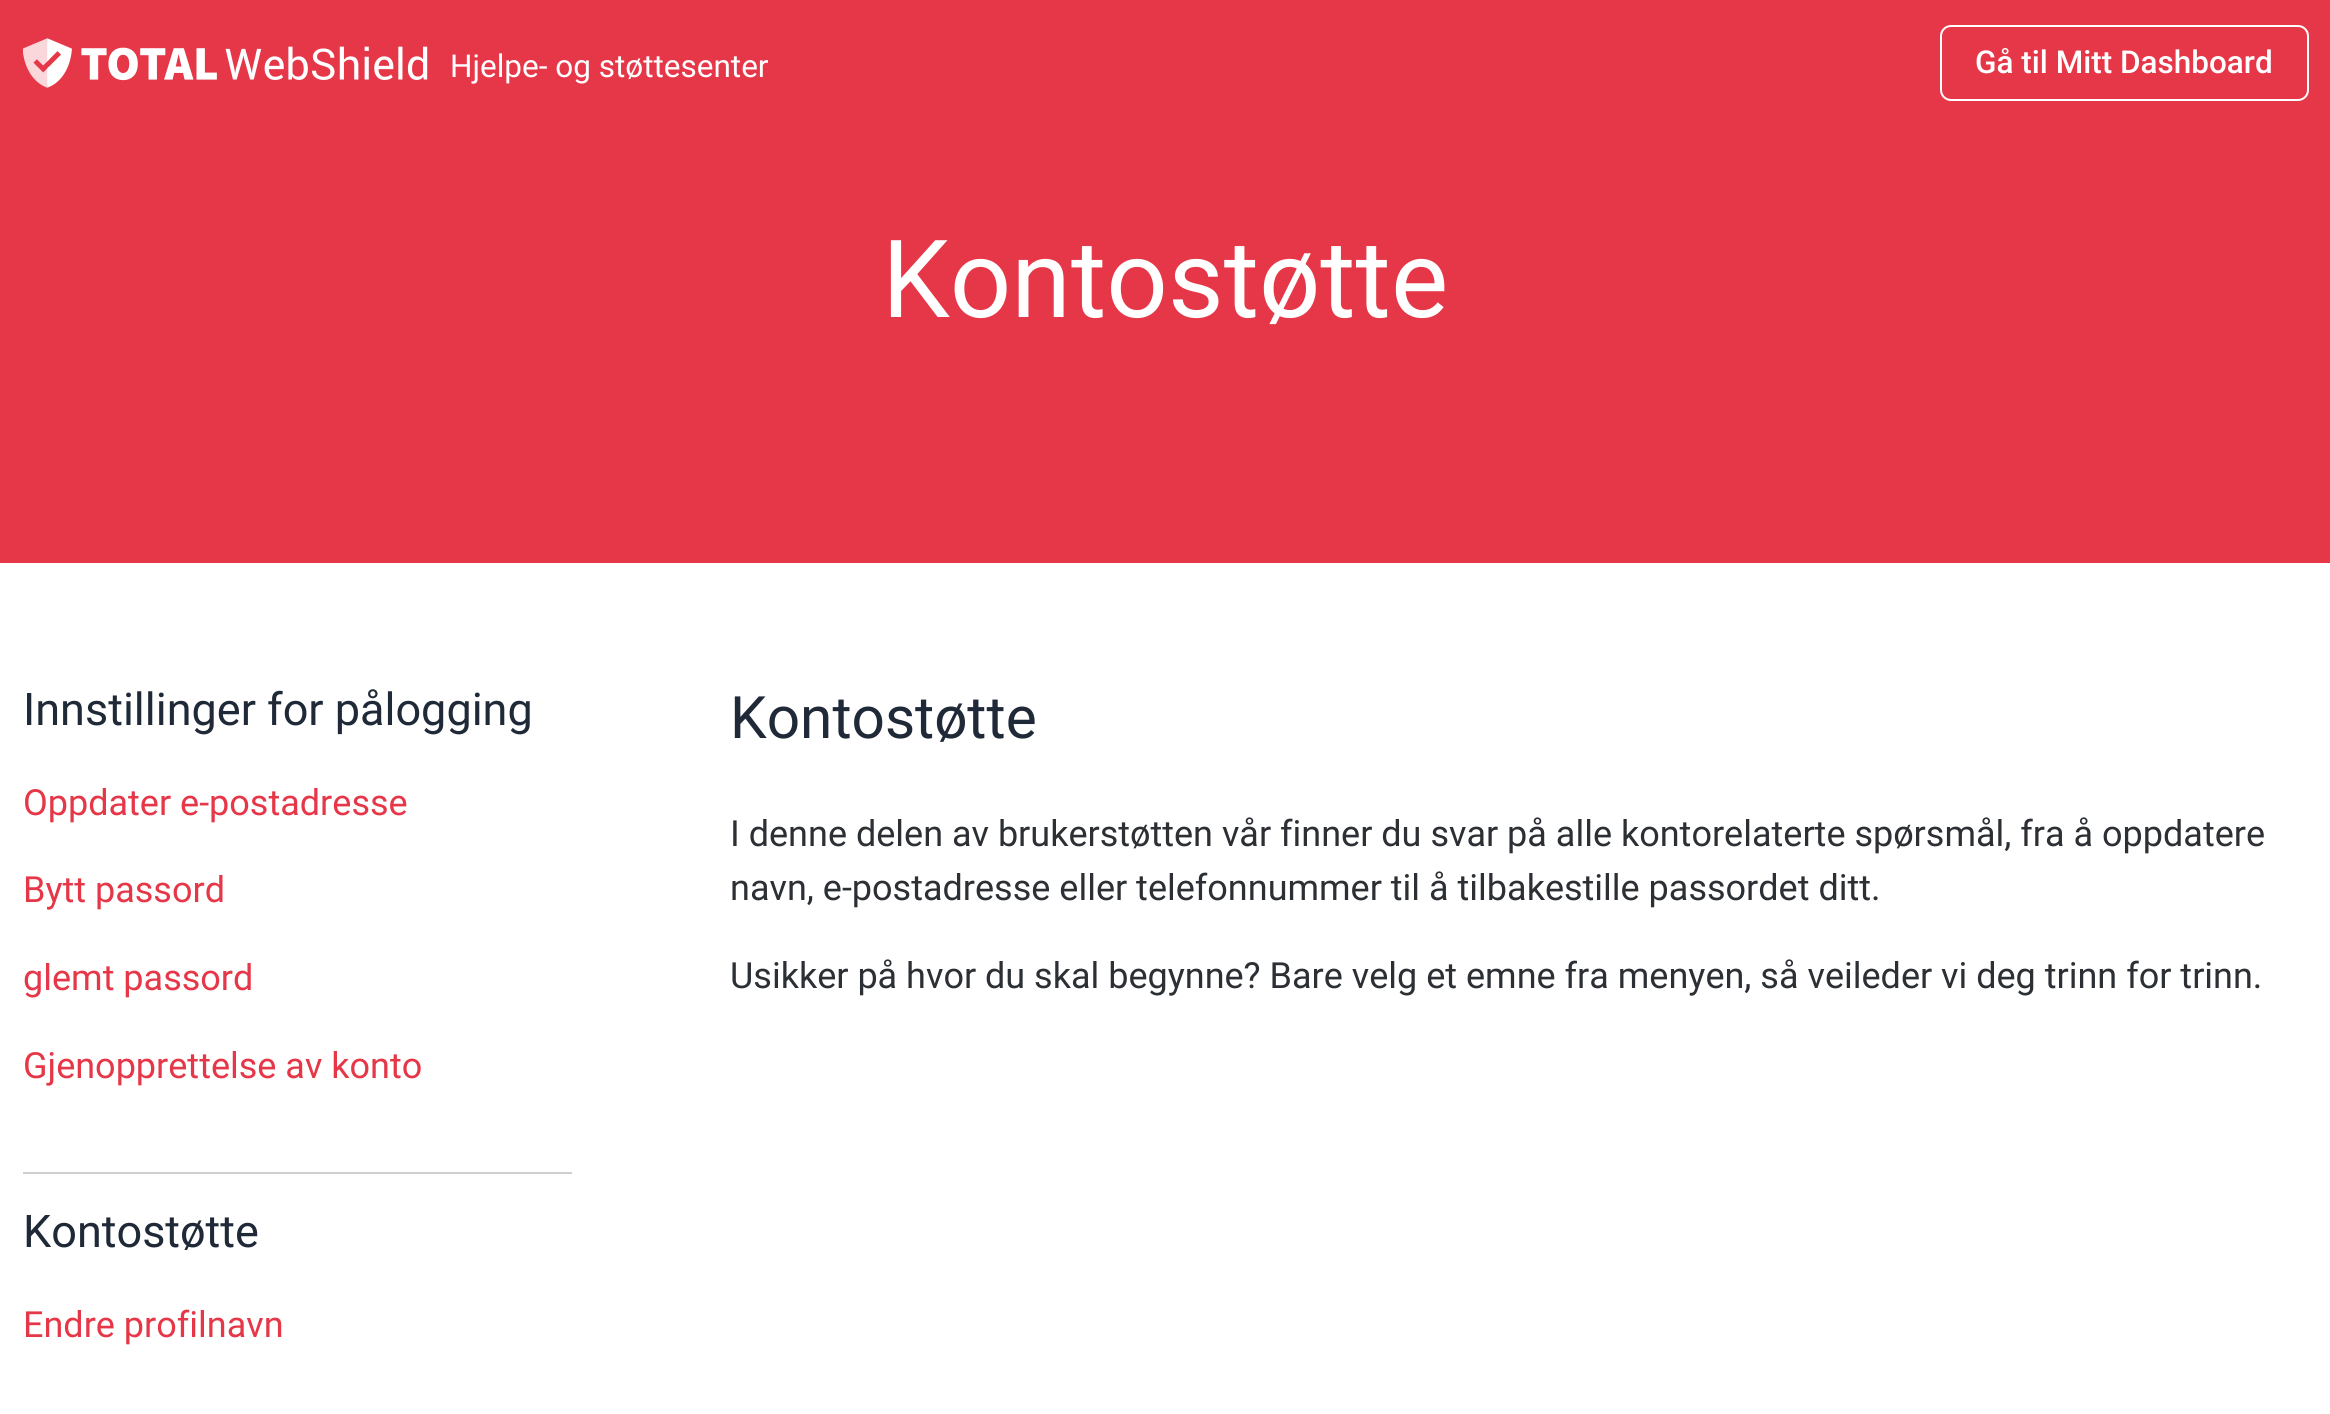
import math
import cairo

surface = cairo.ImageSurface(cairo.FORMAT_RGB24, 2330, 1414)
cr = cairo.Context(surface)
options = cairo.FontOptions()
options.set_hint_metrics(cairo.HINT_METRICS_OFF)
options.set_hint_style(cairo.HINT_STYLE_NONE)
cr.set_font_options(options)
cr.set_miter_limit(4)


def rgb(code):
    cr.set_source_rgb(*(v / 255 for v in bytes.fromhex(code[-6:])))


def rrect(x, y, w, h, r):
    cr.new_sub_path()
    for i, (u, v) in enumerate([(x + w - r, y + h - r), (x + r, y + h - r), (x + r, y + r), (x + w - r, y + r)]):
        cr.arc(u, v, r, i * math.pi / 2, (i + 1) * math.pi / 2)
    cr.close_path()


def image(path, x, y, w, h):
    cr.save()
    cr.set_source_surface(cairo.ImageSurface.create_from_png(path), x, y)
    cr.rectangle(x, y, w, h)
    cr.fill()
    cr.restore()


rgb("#ffffff")
cr.paint()
rgb("#e63748")
cr.rectangle(0, 0, 2330, 563)
cr.fill()
image("img/1.png", 23, 38, 405, 50)
rrect(1941, 26, 367, 74, 10)
rgb("#ffffff")
cr.stroke()
rgb("#cfcfcf")
cr.rectangle(23, 1172, 549, 2)
cr.fill()
cr.select_font_face("Roboto")
cr.set_font_size(31.5)
rgb("#ffffff")
cr.move_to(450, 77)
cr.show_text("Hjelpe- og støttesenter")
cr.select_font_face("Roboto Medium")
cr.move_to(1975, 73)
cr.show_text("Gå til Mitt Dashboard")
cr.select_font_face("Roboto")
cr.set_font_size(108)
cr.move_to(882, 317)
cr.show_text("Kontostøtte")
cr.set_font_size(45)
rgb("#1f2937")
cr.move_to(23, 725)
cr.show_text("Innstillinger for pålogging")
cr.set_font_size(36)
rgb("#e63748")
for x, y, s in [
    (23, 815, "Oppdater e-postadresse"),
    (23, 902, "Bytt passord"),
    (23, 990, "glemt passord"),
    (23, 1078, "Gjenopprettelse av konto"),
]:
    cr.move_to(x, y)
    cr.show_text(s)
cr.set_font_size(45)
rgb("#1f2937")
cr.move_to(23, 1247)
cr.show_text("Kontostøtte")
cr.set_font_size(36)
rgb("#e63748")
cr.move_to(23, 1337)
cr.show_text("Endre profilnavn")
cr.set_font_size(58.5)
rgb("#1f2937")
cr.move_to(730, 738)
cr.show_text("Kontostøtte")
cr.set_font_size(36)
rgb("#2c3035")
for x, y, s in [
    (730, 846, "I denne delen av brukerstøtten vår finner du svar på alle kontorelaterte spørsmål, fra å oppdatere"),
    (730, 900, "navn, e-postadresse eller telefonnummer til å tilbakestille passordet ditt."),
    (730, 988, "Usikker på hvor du skal begynne? Bare velg et emne fra menyen, så veileder vi deg trinn for trinn."),
]:
    cr.move_to(x, y)
    cr.show_text(s)
surface.write_to_png("page.png")
